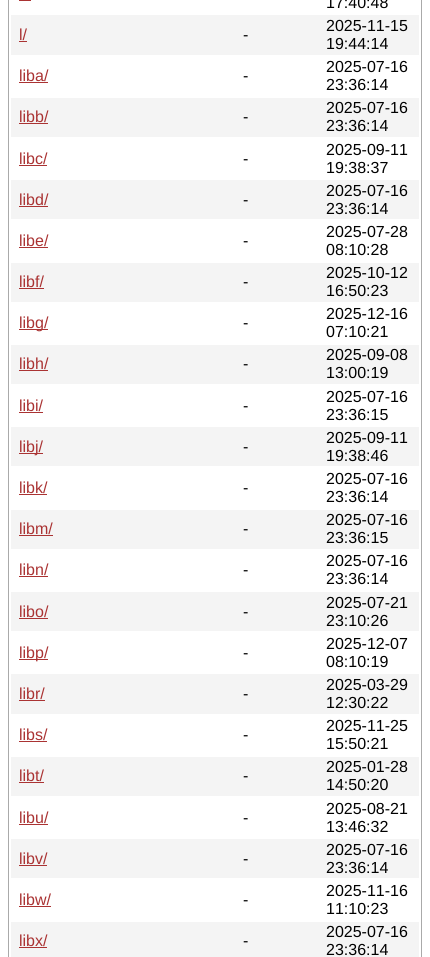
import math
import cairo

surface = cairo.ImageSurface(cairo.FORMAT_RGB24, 430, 957)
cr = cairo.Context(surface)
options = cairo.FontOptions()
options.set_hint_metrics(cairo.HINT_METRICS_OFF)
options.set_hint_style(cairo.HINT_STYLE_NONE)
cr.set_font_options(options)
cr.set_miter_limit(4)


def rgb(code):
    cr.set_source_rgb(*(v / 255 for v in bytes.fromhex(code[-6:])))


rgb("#ffffff")
cr.paint()
cr.rectangle(8.5, -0.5, 413, 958)
rgb("#aaaaaa")
cr.set_line_width(1)
cr.stroke()
for x, y, w, h, color in [
    (19, 0, 12, 1, "#aa3333"),
    (11, 15, 408, 40, "#f4f4f4"),
    (19, 41, 8, 1, "#aa3333"),
    (19, 82, 29, 1, "#aa3333"),
    (11, 98, 408, 39, "#f4f4f4"),
    (19, 123, 29, 1, "#aa3333"),
    (19, 165, 28, 1, "#aa3333"),
    (11, 180, 408, 39, "#f4f4f4"),
    (19, 206, 29, 1, "#aa3333"),
    (19, 247, 29, 1, "#aa3333"),
    (11, 263, 408, 39, "#f4f4f4"),
    (19, 288, 25, 1, "#aa3333"),
    (19, 329, 29, 1, "#aa3333"),
    (11, 345, 408, 39, "#f4f4f4"),
    (19, 370, 29, 1, "#aa3333"),
    (19, 412, 24, 1, "#aa3333"),
    (11, 427, 408, 39, "#f4f4f4"),
    (19, 453, 24, 1, "#aa3333"),
    (19, 494, 28, 1, "#aa3333"),
    (11, 510, 408, 39, "#f4f4f4"),
    (19, 535, 34, 1, "#aa3333"),
    (19, 576, 29, 1, "#aa3333"),
    (11, 592, 408, 39, "#f4f4f4"),
    (19, 618, 29, 1, "#aa3333"),
    (19, 659, 29, 1, "#aa3333"),
    (11, 674, 408, 40, "#f4f4f4"),
    (19, 700, 26, 1, "#aa3333"),
    (19, 741, 28, 1, "#aa3333"),
    (11, 757, 408, 39, "#f4f4f4"),
    (19, 782, 25, 1, "#aa3333"),
    (19, 824, 29, 1, "#aa3333"),
    (11, 839, 408, 39, "#f4f4f4"),
    (19, 865, 28, 1, "#aa3333"),
    (19, 906, 32, 1, "#aa3333"),
    (11, 922, 408, 35, "#f4f4f4"),
    (19, 947, 28, 1, "#aa3333"),
]:
    rgb(color)
    cr.rectangle(x, y, w, h)
    cr.fill()
cr.select_font_face("Liberation Sans")
cr.set_font_size(16)
rgb("#000000")
cr.move_to(326, 8)
cr.show_text("17:40:48")
rgb("#aa3333")
cr.move_to(19, 40)
cr.show_text("l/")
rgb("#000000")
for x, y, s in [
    (243, 40, "-"),
    (326, 31, "2025-11-15"),
    (326, 49, "19:44:14"),
]:
    cr.move_to(x, y)
    cr.show_text(s)
rgb("#aa3333")
cr.move_to(19, 81)
cr.show_text("liba/")
rgb("#000000")
for x, y, s in [
    (243, 81, "-"),
    (326, 72, "2025-07-16"),
    (326, 90, "23:36:14"),
]:
    cr.move_to(x, y)
    cr.show_text(s)
rgb("#aa3333")
cr.move_to(19, 122)
cr.show_text("libb/")
rgb("#000000")
for x, y, s in [
    (243, 122, "-"),
    (326, 113, "2025-07-16"),
    (326, 131, "23:36:14"),
]:
    cr.move_to(x, y)
    cr.show_text(s)
rgb("#aa3333")
cr.move_to(19, 164)
cr.show_text("libc/")
rgb("#000000")
for x, y, s in [
    (243, 164, "-"),
    (326, 155, "2025-09-11"),
    (326, 173, "19:38:37"),
]:
    cr.move_to(x, y)
    cr.show_text(s)
rgb("#aa3333")
cr.move_to(19, 205)
cr.show_text("libd/")
rgb("#000000")
for x, y, s in [
    (243, 205, "-"),
    (326, 196, "2025-07-16"),
    (326, 214, "23:36:14"),
]:
    cr.move_to(x, y)
    cr.show_text(s)
rgb("#aa3333")
cr.move_to(19, 246)
cr.show_text("libe/")
rgb("#000000")
for x, y, s in [
    (243, 246, "-"),
    (326, 237, "2025-07-28"),
    (326, 255, "08:10:28"),
]:
    cr.move_to(x, y)
    cr.show_text(s)
rgb("#aa3333")
cr.move_to(19, 287)
cr.show_text("libf/")
rgb("#000000")
for x, y, s in [
    (243, 287, "-"),
    (326, 278, "2025-10-12"),
    (326, 296, "16:50:23"),
]:
    cr.move_to(x, y)
    cr.show_text(s)
rgb("#aa3333")
cr.move_to(19, 328)
cr.show_text("libg/")
rgb("#000000")
for x, y, s in [
    (243, 328, "-"),
    (326, 319, "2025-12-16"),
    (326, 337, "07:10:21"),
]:
    cr.move_to(x, y)
    cr.show_text(s)
rgb("#aa3333")
cr.move_to(19, 369)
cr.show_text("libh/")
rgb("#000000")
for x, y, s in [
    (243, 369, "-"),
    (326, 360, "2025-09-08"),
    (326, 378, "13:00:19"),
]:
    cr.move_to(x, y)
    cr.show_text(s)
rgb("#aa3333")
cr.move_to(19, 411)
cr.show_text("libi/")
rgb("#000000")
for x, y, s in [
    (243, 411, "-"),
    (326, 402, "2025-07-16"),
    (326, 420, "23:36:15"),
]:
    cr.move_to(x, y)
    cr.show_text(s)
rgb("#aa3333")
cr.move_to(19, 452)
cr.show_text("libj/")
rgb("#000000")
for x, y, s in [
    (243, 452, "-"),
    (326, 443, "2025-09-11"),
    (326, 461, "19:38:46"),
]:
    cr.move_to(x, y)
    cr.show_text(s)
rgb("#aa3333")
cr.move_to(19, 493)
cr.show_text("libk/")
rgb("#000000")
for x, y, s in [
    (243, 493, "-"),
    (326, 484, "2025-07-16"),
    (326, 502, "23:36:14"),
]:
    cr.move_to(x, y)
    cr.show_text(s)
rgb("#aa3333")
cr.move_to(19, 534)
cr.show_text("libm/")
rgb("#000000")
for x, y, s in [
    (243, 534, "-"),
    (326, 525, "2025-07-16"),
    (326, 543, "23:36:15"),
]:
    cr.move_to(x, y)
    cr.show_text(s)
rgb("#aa3333")
cr.move_to(19, 575)
cr.show_text("libn/")
rgb("#000000")
for x, y, s in [
    (243, 575, "-"),
    (326, 566, "2025-07-16"),
    (326, 584, "23:36:14"),
]:
    cr.move_to(x, y)
    cr.show_text(s)
rgb("#aa3333")
cr.move_to(19, 617)
cr.show_text("libo/")
rgb("#000000")
for x, y, s in [
    (243, 617, "-"),
    (326, 608, "2025-07-21"),
    (326, 626, "23:10:26"),
]:
    cr.move_to(x, y)
    cr.show_text(s)
rgb("#aa3333")
cr.move_to(19, 658)
cr.show_text("libp/")
rgb("#000000")
for x, y, s in [
    (243, 658, "-"),
    (326, 649, "2025-12-07"),
    (326, 667, "08:10:19"),
]:
    cr.move_to(x, y)
    cr.show_text(s)
rgb("#aa3333")
cr.move_to(19, 699)
cr.show_text("libr/")
rgb("#000000")
for x, y, s in [
    (243, 699, "-"),
    (326, 690, "2025-03-29"),
    (326, 708, "12:30:22"),
]:
    cr.move_to(x, y)
    cr.show_text(s)
rgb("#aa3333")
cr.move_to(19, 740)
cr.show_text("libs/")
rgb("#000000")
for x, y, s in [
    (243, 740, "-"),
    (326, 731, "2025-11-25"),
    (326, 749, "15:50:21"),
]:
    cr.move_to(x, y)
    cr.show_text(s)
rgb("#aa3333")
cr.move_to(19, 781)
cr.show_text("libt/")
rgb("#000000")
for x, y, s in [
    (243, 781, "-"),
    (326, 772, "2025-01-28"),
    (326, 790, "14:50:20"),
]:
    cr.move_to(x, y)
    cr.show_text(s)
rgb("#aa3333")
cr.move_to(19, 823)
cr.show_text("libu/")
rgb("#000000")
for x, y, s in [
    (243, 823, "-"),
    (326, 814, "2025-08-21"),
    (326, 832, "13:46:32"),
]:
    cr.move_to(x, y)
    cr.show_text(s)
rgb("#aa3333")
cr.move_to(19, 864)
cr.show_text("libv/")
rgb("#000000")
for x, y, s in [
    (243, 864, "-"),
    (326, 855, "2025-07-16"),
    (326, 873, "23:36:14"),
]:
    cr.move_to(x, y)
    cr.show_text(s)
rgb("#aa3333")
cr.move_to(19, 905)
cr.show_text("libw/")
rgb("#000000")
for x, y, s in [
    (243, 905, "-"),
    (326, 896, "2025-11-16"),
    (326, 914, "11:10:23"),
]:
    cr.move_to(x, y)
    cr.show_text(s)
rgb("#aa3333")
cr.move_to(19, 946)
cr.show_text("libx/")
rgb("#000000")
for x, y, s in [
    (243, 946, "-"),
    (326, 937, "2025-07-16"),
    (326, 955, "23:36:14"),
]:
    cr.move_to(x, y)
    cr.show_text(s)
surface.write_to_png("page.png")
